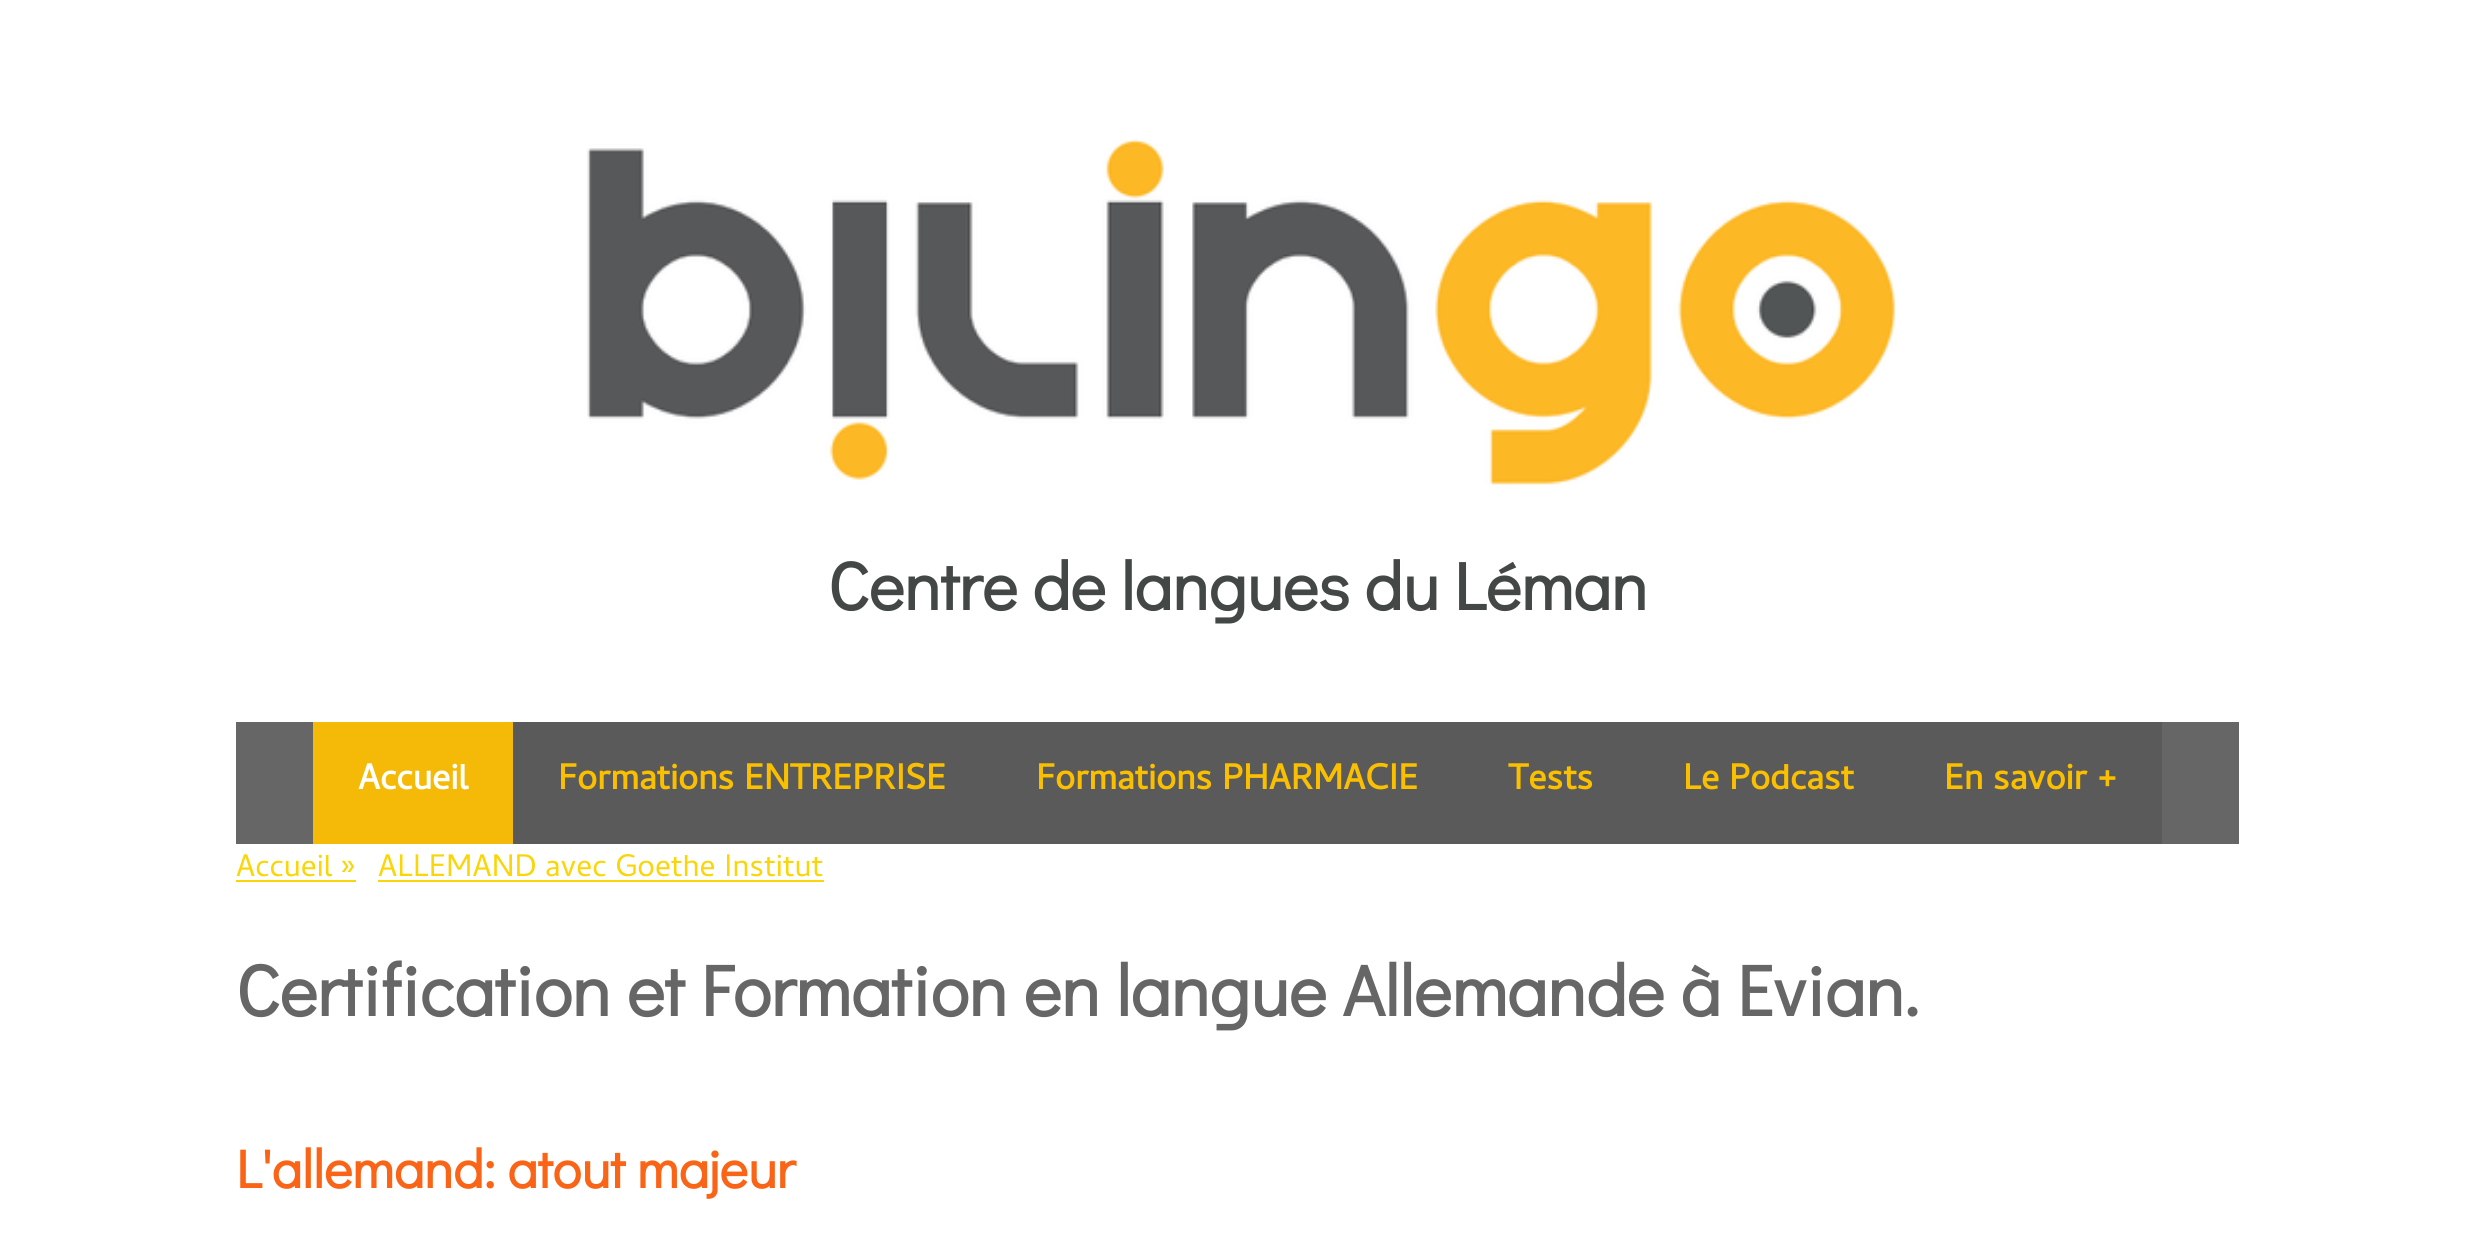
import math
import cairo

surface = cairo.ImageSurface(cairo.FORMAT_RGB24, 2475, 1254)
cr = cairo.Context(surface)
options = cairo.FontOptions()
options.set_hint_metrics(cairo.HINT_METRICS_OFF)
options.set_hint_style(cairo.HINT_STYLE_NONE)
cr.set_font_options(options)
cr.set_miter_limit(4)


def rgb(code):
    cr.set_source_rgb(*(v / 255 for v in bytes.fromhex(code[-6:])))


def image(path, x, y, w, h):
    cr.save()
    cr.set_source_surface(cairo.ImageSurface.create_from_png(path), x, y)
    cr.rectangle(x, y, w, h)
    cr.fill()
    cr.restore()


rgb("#ffffff")
cr.paint()
image("img/1.png", 587, 139, 1309, 346)
for x, y, w, h, color in [
    (236, 722, 2003, 122, "#666666"),
    (313, 722, 200, 122, "#f4ba07"),
    (513, 722, 1649, 122, "#5a5a5a"),
    (236, 880, 120, 2, "#fad507"),
    (378, 880, 446, 2, "#fad507"),
]:
    rgb(color)
    cr.rectangle(x, y, w, h)
    cr.fill()
cr.select_font_face("Didact Gothic", cairo.FONT_SLANT_NORMAL, cairo.FONT_WEIGHT_BOLD)
cr.set_font_size(67.5)
rgb("#434745")
cr.move_to(828, 610)
cr.show_text("Centre de langues du Léman")
cr.select_font_face("Cambay", cairo.FONT_SLANT_NORMAL, cairo.FONT_WEIGHT_BOLD)
cr.set_font_size(36)
rgb("#ffffff")
cr.move_to(358, 789)
cr.show_text("Accueil")
rgb("#fac000")
for x, y, s in [
    (558, 789, "Formations ENTREPRISE"),
    (1036, 789, "Formations PHARMACIE"),
    (1508, 789, "Tests"),
    (1683, 789, "Le Podcast"),
    (1944, 789, "En savoir +"),
]:
    cr.move_to(x, y)
    cr.show_text(s)
cr.select_font_face("Cambay")
cr.set_font_size(31.5)
rgb("#fad507")
cr.move_to(236, 876)
cr.show_text("Accueil »")
cr.move_to(378, 876)
cr.show_text("ALLEMAND avec Goethe Institut")
cr.select_font_face("Didact Gothic", cairo.FONT_SLANT_NORMAL, cairo.FONT_WEIGHT_BOLD)
cr.set_font_size(72)
rgb("#666666")
cr.move_to(236, 1016)
cr.show_text("Certification et Formation en langue Allemande à Evian.")
cr.set_font_size(54)
rgb("#f96417")
cr.move_to(236, 1188)
cr.show_text("L'allemand: atout majeur")
surface.write_to_png("page.png")
